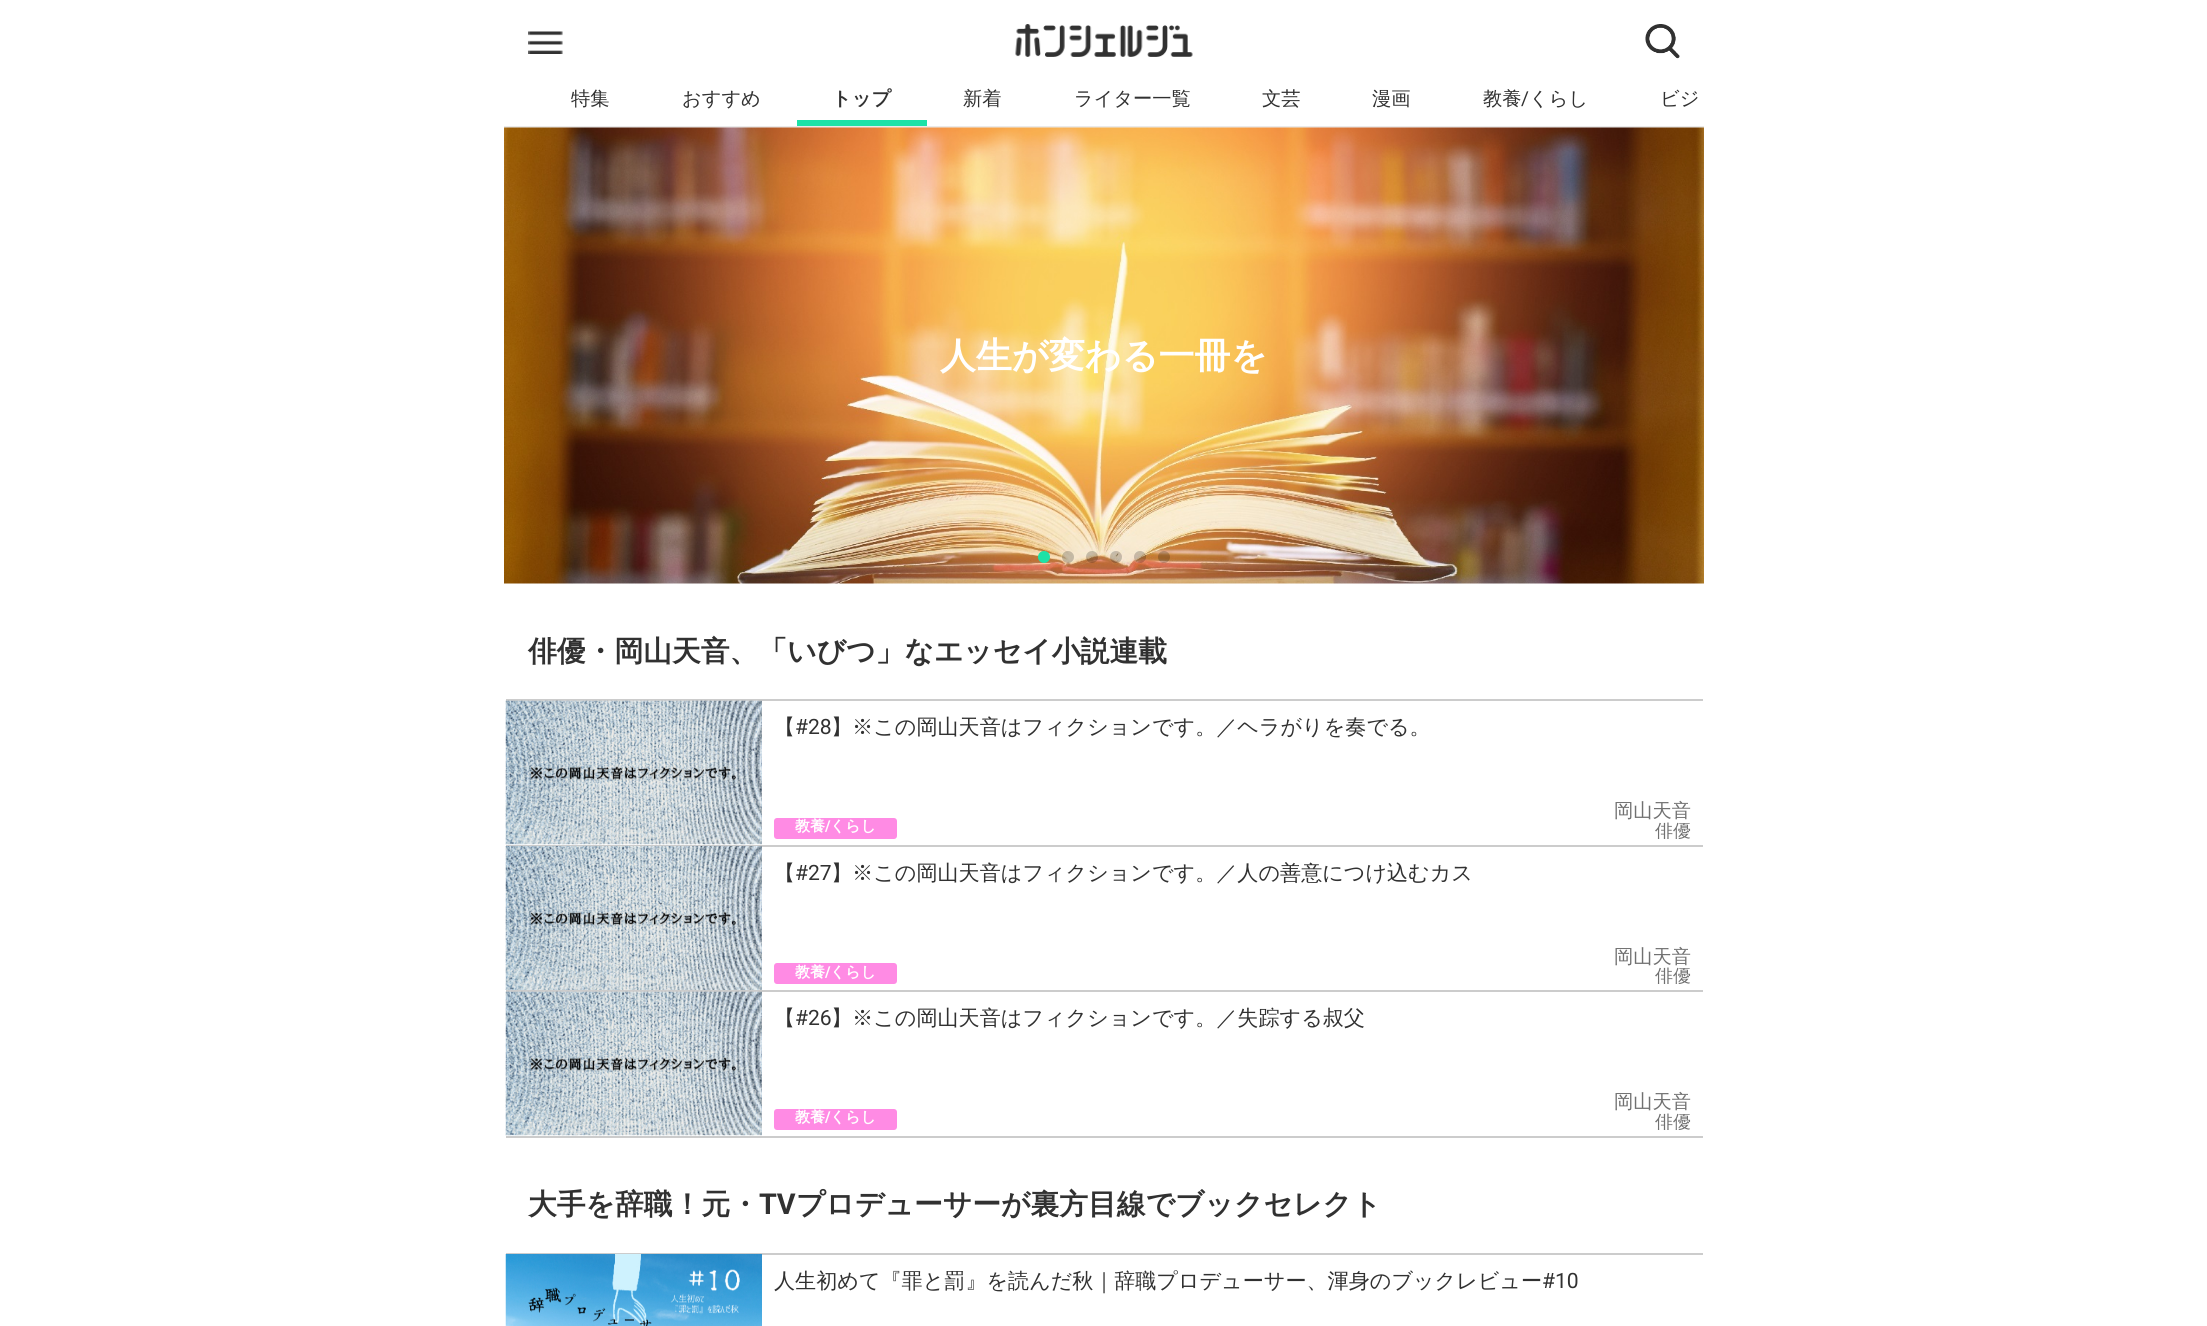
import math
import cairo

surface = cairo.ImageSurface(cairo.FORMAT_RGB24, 2207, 1326)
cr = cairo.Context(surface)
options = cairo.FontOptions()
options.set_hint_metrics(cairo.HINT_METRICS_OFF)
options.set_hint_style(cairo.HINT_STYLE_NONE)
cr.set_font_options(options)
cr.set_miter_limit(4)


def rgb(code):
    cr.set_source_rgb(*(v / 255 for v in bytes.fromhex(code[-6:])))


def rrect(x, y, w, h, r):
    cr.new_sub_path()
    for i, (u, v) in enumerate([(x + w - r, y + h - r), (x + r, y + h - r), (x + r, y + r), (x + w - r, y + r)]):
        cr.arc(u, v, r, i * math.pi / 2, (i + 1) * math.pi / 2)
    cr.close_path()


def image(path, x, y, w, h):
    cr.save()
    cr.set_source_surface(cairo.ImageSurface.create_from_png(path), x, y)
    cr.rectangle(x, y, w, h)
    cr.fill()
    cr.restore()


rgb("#ffffff")
cr.paint()
image("img/1.png", 528, 31, 35, 23)
image("img/2.png", 1015, 24, 178, 33)
image("img/3.png", 1645, 24, 35, 35)
rgb("#1de2a7")
cr.rectangle(797, 120, 130, 6)
cr.fill()
rgb("#eaeaea")
cr.rectangle(504, 126, 1200, 2)
cr.fill()
image("img/4.png", 504, 127, 1200, 457)
rgb("#1de2a7")
cr.arc(1044, 557, 6, 0, 2 * math.pi)
cr.fill()
cr.set_source_rgba(0, 0, 0, 0.2)
cr.arc(1068, 557, 6, 0, 2 * math.pi)
cr.fill()
cr.arc(1092, 557, 6, 0, 2 * math.pi)
cr.fill()
cr.arc(1116, 557, 6, 0, 2 * math.pi)
cr.fill()
cr.arc(1140, 557, 6, 0, 2 * math.pi)
cr.fill()
cr.arc(1164, 557, 6, 0, 2 * math.pi)
cr.fill()
rgb("#cccccc")
cr.rectangle(506, 699, 1197, 2)
cr.fill()
image("img/5.png", 505, 700, 257, 145)
rgb("#ff8be4")
rrect(774, 818, 123, 21, 3)
cr.fill()
rgb("#cccccc")
cr.rectangle(506, 845, 1197, 2)
cr.fill()
image("img/6.png", 505, 846, 257, 144)
rgb("#ff8be4")
rrect(774, 963, 123, 21, 3)
cr.fill()
rgb("#cccccc")
cr.rectangle(506, 990, 1197, 2)
cr.fill()
cr.rectangle(506, 1136, 1197, 2)
cr.fill()
image("img/5.png", 505, 991, 257, 145)
rgb("#ff8be4")
rrect(774, 1109, 123, 21, 3)
cr.fill()
rgb("#cccccc")
cr.rectangle(506, 1253, 1197, 2)
cr.fill()
image("img/7.png", 505, 1254, 257, 72)
cr.select_font_face("WenQuanYi Zen Hei Medium")
cr.set_font_size(19.25)
rgb("#313131")
cr.move_to(571, 105)
cr.show_text("特集")
cr.move_to(682, 105)
cr.show_text("おすすめ")
cr.select_font_face("WenQuanYi Zen Hei", cairo.FONT_SLANT_NORMAL, cairo.FONT_WEIGHT_BOLD)
cr.move_to(832, 105)
cr.show_text("トップ")
cr.select_font_face("WenQuanYi Zen Hei Medium")
for x, y, s in [
    (963, 105, "新着"),
    (1074, 105, "ライター一覧"),
    (1262, 105, "文芸"),
    (1372, 105, "漫画"),
    (1483, 105, "教養"),
]:
    cr.move_to(x, y)
    cr.show_text(s)
cr.select_font_face("Roboto")
cr.move_to(1521, 105)
cr.show_text("/")
cr.select_font_face("WenQuanYi Zen Hei Medium")
cr.move_to(1529, 105)
cr.show_text("くらし")
cr.move_to(1660, 105)
cr.show_text("ビジ")
cr.select_font_face("WenQuanYi Zen Hei", cairo.FONT_SLANT_NORMAL, cairo.FONT_WEIGHT_BOLD)
cr.set_font_size(36)
rgb("#ffffff")
cr.move_to(940, 368)
cr.show_text("人生が変わる一冊を")
cr.set_font_size(28.8)
rgb("#313131")
cr.move_to(528, 661)
cr.show_text("俳優・岡山天音、「いびつ」なエッセイ小説連載")
cr.select_font_face("WenQuanYi Zen Hei Medium")
cr.set_font_size(21.1)
cr.move_to(774, 734)
cr.show_text("【")
cr.select_font_face("Roboto")
cr.move_to(795, 734)
cr.show_text("#28")
cr.select_font_face("WenQuanYi Zen Hei Medium")
cr.move_to(831, 734)
cr.show_text("】※この岡山天音はフィクションです。／ヘラがりを奏でる。")
cr.select_font_face("WenQuanYi Zen Hei", cairo.FONT_SLANT_NORMAL, cairo.FONT_WEIGHT_BOLD)
cr.set_font_size(15)
rgb("#ffffff")
cr.move_to(795, 831)
cr.show_text("教養")
cr.select_font_face("Roboto", cairo.FONT_SLANT_NORMAL, cairo.FONT_WEIGHT_BOLD)
cr.move_to(825, 831)
cr.show_text("/")
cr.select_font_face("WenQuanYi Zen Hei", cairo.FONT_SLANT_NORMAL, cairo.FONT_WEIGHT_BOLD)
cr.move_to(830, 831)
cr.show_text("くらし")
cr.select_font_face("WenQuanYi Zen Hei Medium")
cr.set_font_size(19.25)
rgb("#707070")
cr.move_to(1614, 817)
cr.show_text("岡山天音")
cr.save()
rrect(909, 797, 782, 42, 3)
cr.clip()
cr.set_font_size(18)
cr.move_to(1655, 837)
cr.show_text("俳優")
cr.restore()
cr.set_font_size(21.1)
rgb("#313131")
cr.move_to(774, 880)
cr.show_text("【")
cr.select_font_face("Roboto")
cr.move_to(795, 880)
cr.show_text("#27")
cr.select_font_face("WenQuanYi Zen Hei Medium")
cr.move_to(831, 880)
cr.show_text("】※この岡山天音はフィクションです。／人の善意につけ込むカス")
cr.select_font_face("WenQuanYi Zen Hei", cairo.FONT_SLANT_NORMAL, cairo.FONT_WEIGHT_BOLD)
cr.set_font_size(15)
rgb("#ffffff")
cr.move_to(795, 977)
cr.show_text("教養")
cr.select_font_face("Roboto", cairo.FONT_SLANT_NORMAL, cairo.FONT_WEIGHT_BOLD)
cr.move_to(825, 977)
cr.show_text("/")
cr.select_font_face("WenQuanYi Zen Hei", cairo.FONT_SLANT_NORMAL, cairo.FONT_WEIGHT_BOLD)
cr.move_to(830, 977)
cr.show_text("くらし")
cr.select_font_face("WenQuanYi Zen Hei Medium")
cr.set_font_size(19.25)
rgb("#707070")
cr.move_to(1614, 963)
cr.show_text("岡山天音")
cr.save()
rrect(909, 942, 782, 42, 3)
cr.clip()
cr.set_font_size(18)
cr.move_to(1655, 982)
cr.show_text("俳優")
cr.restore()
cr.set_font_size(21.1)
rgb("#313131")
cr.move_to(774, 1025)
cr.show_text("【")
cr.select_font_face("Roboto")
cr.move_to(795, 1025)
cr.show_text("#26")
cr.select_font_face("WenQuanYi Zen Hei Medium")
cr.move_to(831, 1025)
cr.show_text("】※この岡山天音はフィクションです。／失踪する叔父")
cr.select_font_face("WenQuanYi Zen Hei", cairo.FONT_SLANT_NORMAL, cairo.FONT_WEIGHT_BOLD)
cr.set_font_size(15)
rgb("#ffffff")
cr.move_to(795, 1122)
cr.show_text("教養")
cr.select_font_face("Roboto", cairo.FONT_SLANT_NORMAL, cairo.FONT_WEIGHT_BOLD)
cr.move_to(825, 1122)
cr.show_text("/")
cr.select_font_face("WenQuanYi Zen Hei", cairo.FONT_SLANT_NORMAL, cairo.FONT_WEIGHT_BOLD)
cr.move_to(830, 1122)
cr.show_text("くらし")
cr.select_font_face("WenQuanYi Zen Hei Medium")
cr.set_font_size(19.25)
rgb("#707070")
cr.move_to(1614, 1108)
cr.show_text("岡山天音")
cr.save()
rrect(909, 1088, 782, 42, 3)
cr.clip()
cr.set_font_size(18)
cr.move_to(1655, 1128)
cr.show_text("俳優")
cr.restore()
cr.select_font_face("WenQuanYi Zen Hei", cairo.FONT_SLANT_NORMAL, cairo.FONT_WEIGHT_BOLD)
cr.set_font_size(28.8)
rgb("#313131")
cr.move_to(528, 1214)
cr.show_text("大手を辞職！元・")
cr.select_font_face("Roboto", cairo.FONT_SLANT_NORMAL, cairo.FONT_WEIGHT_BOLD)
cr.move_to(759, 1214)
cr.show_text("TV")
cr.select_font_face("WenQuanYi Zen Hei", cairo.FONT_SLANT_NORMAL, cairo.FONT_WEIGHT_BOLD)
cr.move_to(796, 1214)
cr.show_text("プロデューサーが裏方目線でブックセレクト")
cr.select_font_face("WenQuanYi Zen Hei Medium")
cr.set_font_size(21.1)
cr.move_to(774, 1288)
cr.show_text("人生初めて『罪と罰』を読んだ秋｜辞職プロデューサー、渾身のブックレビュー")
cr.select_font_face("Roboto")
cr.move_to(1542, 1288)
cr.show_text("#10")
surface.write_to_png("page.png")
